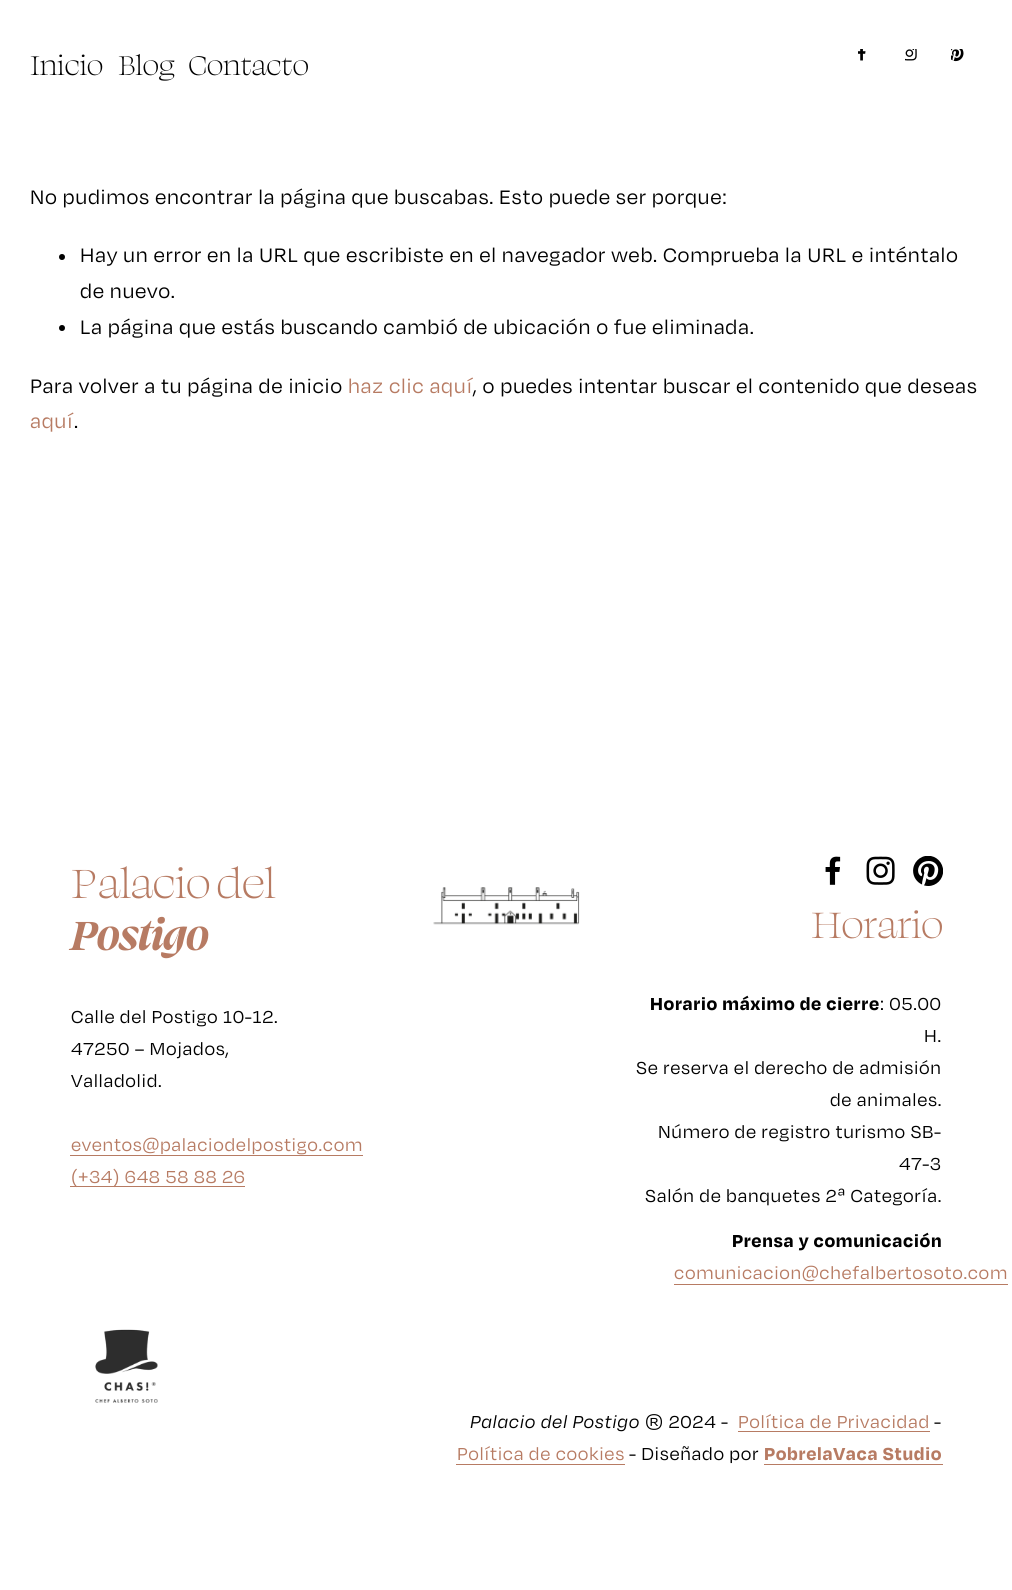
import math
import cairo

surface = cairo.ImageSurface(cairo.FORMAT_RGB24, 1012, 1590)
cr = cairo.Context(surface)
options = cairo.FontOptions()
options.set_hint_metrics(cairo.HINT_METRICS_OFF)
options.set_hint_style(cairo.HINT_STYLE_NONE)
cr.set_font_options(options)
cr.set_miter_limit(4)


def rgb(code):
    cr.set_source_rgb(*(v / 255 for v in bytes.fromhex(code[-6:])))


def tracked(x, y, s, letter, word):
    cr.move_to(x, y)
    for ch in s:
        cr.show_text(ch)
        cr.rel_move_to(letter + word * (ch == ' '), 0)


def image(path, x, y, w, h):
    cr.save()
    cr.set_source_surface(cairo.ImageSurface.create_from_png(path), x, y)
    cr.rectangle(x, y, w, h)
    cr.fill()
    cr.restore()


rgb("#ffffff")
cr.paint()
image("img/1.png", 858, 49, 8, 12)
image("img/2.png", 905, 49, 12, 12)
image("img/3.png", 951, 49, 13, 13)
rgb("#000000")
cr.arc(62, 257, 3, 0, 2 * math.pi)
cr.fill()
cr.arc(62, 328, 3, 0, 2 * math.pi)
cr.fill()
rgb("#b77b63")
cr.rectangle(70, 1155, 293, 1)
cr.fill()
cr.rectangle(70, 1186, 175, 1)
cr.fill()
image("img/4.png", 433, 887, 147, 38)
image("img/5.png", 825, 856, 16, 29)
image("img/6.png", 866, 856, 29, 29)
image("img/7.png", 913, 856, 30, 30)
cr.rectangle(674, 1284, 334, 1)
cr.fill()
image("img/8.png", 95, 1329, 63, 74)
for x, y, w, h, color in [
    (738, 1431, 192, 1, "#b77b63"),
    (456, 1464, 169, 1, "#b77b63"),
    (764, 1464, 179, 1, "#b77b63"),
]:
    rgb(color)
    cr.rectangle(x, y, w, h)
    cr.fill()
cr.select_font_face("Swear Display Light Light")
cr.set_font_size(31)
rgb("#000000")
for x, y, s in [
    (30, 75, "Inicio"),
    (118, 75, "Blog"),
    (188, 75, "Contacto"),
]:
    tracked(x, y, s, -0.5, 0)
cr.select_font_face("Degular")
cr.set_font_size(22.45)
for x, y, s in [
    (30, 204, "No pudimos encontrar la página que buscabas. Esto puede ser porque:"),
    (80, 262, "Hay un error en la URL que escribiste en el navegador web. Comprueba la URL e inténtalo"),
    (80, 298, "de nuevo."),
    (80, 334, "La página que estás buscando cambió de ubicación o fue eliminada."),
    (30, 393, "Para volver a tu página de inicio"),
]:
    tracked(x, y, s, 0.67, 0)
rgb("#b77b63")
tracked(348, 393, "haz clic aquí", 0.67, 0)
rgb("#000000")
tracked(473, 393, ", o puedes intentar buscar el contenido que deseas", 0.67, 0)
rgb("#b77b63")
tracked(30, 428, "aquí", 0.67, 0)
rgb("#000000")
tracked(74, 428, ".", 0.67, 0)
cr.select_font_face("Swear Display Light Light")
cr.set_font_size(46.75)
rgb("#b77b63")
tracked(71, 898, "Palacio del", -1, 0)
cr.select_font_face("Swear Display", cairo.FONT_SLANT_ITALIC, cairo.FONT_WEIGHT_BOLD)
tracked(71, 950, "Postigo", -1, 0)
cr.select_font_face("Degular")
cr.set_font_size(20)
rgb("#000000")
for x, y, s in [
    (71, 1023, "Calle del Postigo 10-12."),
    (71, 1055, "47250 – Mojados,"),
    (71, 1087, "Valladolid."),
]:
    tracked(x, y, s, 0.67, 0)
rgb("#b77b63")
tracked(71, 1151, "eventos@palaciodelpostigo.com", 0.67, 0)
tracked(71, 1183, "(+34) 648 58 88 26", 0.67, 0)
cr.select_font_face("Swear Display Light Light")
cr.set_font_size(42)
tracked(811, 938, "Horario", -0.75, 0)
cr.select_font_face("Degular", cairo.FONT_SLANT_NORMAL, cairo.FONT_WEIGHT_BOLD)
cr.set_font_size(20)
rgb("#000000")
tracked(650, 1010, "Horario máximo de cierre", 0.67, 0)
cr.select_font_face("Degular")
for x, y, s in [
    (880, 1010, ": 05.00"),
    (924, 1042, "H."),
    (636, 1074, "Se reserva el derecho de admisión"),
    (830, 1106, "de animales."),
    (658, 1138, "Número de registro turismo SB-"),
    (899, 1170, "47-3"),
    (645, 1202, "Salón de banquetes 2ª Categoría."),
]:
    tracked(x, y, s, 0.67, 0)
cr.select_font_face("Degular", cairo.FONT_SLANT_NORMAL, cairo.FONT_WEIGHT_BOLD)
tracked(732, 1247, "Prensa y comunicación", 0.67, 0)
cr.select_font_face("Degular")
rgb("#b77b63")
tracked(674, 1279, "comunicacion@chefalbertosoto.com", 0.67, 0)
cr.select_font_face("Degular", cairo.FONT_SLANT_ITALIC)
rgb("#000000")
tracked(470, 1428, "Palacio del Postigo", 0.67, 0)
cr.select_font_face("Degular")
tracked(645, 1428, "® 2024 -", 0.67, 0)
rgb("#b77b63")
tracked(738, 1428, "Política de Privacidad", 0.67, 0)
rgb("#000000")
tracked(934, 1428, "-", 0.67, 0)
rgb("#b77b63")
tracked(457, 1460, "Política de cookies", 0.67, 0)
rgb("#000000")
tracked(629, 1460, "- Diseñado por", 0.67, 0)
cr.select_font_face("Degular", cairo.FONT_SLANT_NORMAL, cairo.FONT_WEIGHT_BOLD)
rgb("#b77b63")
tracked(764, 1460, "PobrelaVaca Studio", 0.67, 0)
surface.write_to_png("page.png")
